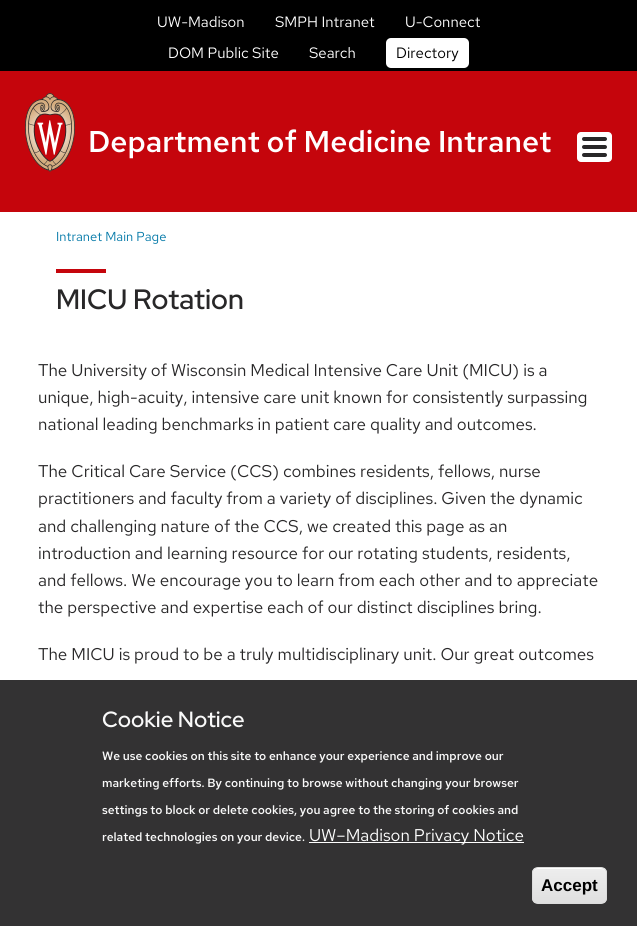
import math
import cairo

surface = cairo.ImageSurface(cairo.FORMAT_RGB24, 637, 926)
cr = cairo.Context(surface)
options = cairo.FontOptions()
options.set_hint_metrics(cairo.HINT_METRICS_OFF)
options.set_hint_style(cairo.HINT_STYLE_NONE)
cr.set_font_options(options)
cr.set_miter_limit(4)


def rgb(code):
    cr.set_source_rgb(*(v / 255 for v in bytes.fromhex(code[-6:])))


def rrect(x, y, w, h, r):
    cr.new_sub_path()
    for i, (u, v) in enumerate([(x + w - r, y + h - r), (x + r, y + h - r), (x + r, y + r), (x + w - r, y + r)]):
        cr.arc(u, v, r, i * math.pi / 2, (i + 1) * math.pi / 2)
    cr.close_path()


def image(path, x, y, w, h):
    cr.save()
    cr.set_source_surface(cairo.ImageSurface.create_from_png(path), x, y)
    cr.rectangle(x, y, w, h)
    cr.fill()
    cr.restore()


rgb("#ffffff")
cr.paint()
rgb("#000000")
cr.rectangle(0, 0, 637, 71)
cr.fill()
rgb("#ffffff")
rrect(386, 38, 83, 30, 5)
cr.fill()
rgb("#c5050c")
cr.rectangle(0, 71, 637, 141)
cr.fill()
image("img/1.png", 25, 93, 50, 79)
rgb("#ffffff")
rrect(577, 132, 35, 30, 4)
cr.fill()
rgb("#282728")
rrect(582, 137, 25, 4, 2)
cr.fill()
rrect(582, 145, 25, 4, 2)
cr.fill()
rrect(582, 153, 25, 4, 2)
cr.fill()
for x, y, w, h, color in [
    (56, 269, 50, 4, "#c5050c"),
    (0, 680, 637, 246, "#333233"),
    (309, 842, 215, 1, "#ffffff"),
]:
    rgb(color)
    cr.rectangle(x, y, w, h)
    cr.fill()
cr.save()
rrect(532, 867, 75, 37, 6)
cr.clip()
gradient = cairo.LinearGradient(570, 868, 570, 903)
gradient.add_color_stop_rgba(0.05, 0.929, 0.929, 0.929, 1)
gradient.add_color_stop_rgba(1, 0.875, 0.875, 0.875, 1)
cr.set_source(gradient)
cr.rectangle(532, 868, 75, 35)
cr.fill()
cr.restore()
cr.new_path()
cr.move_to(538, 869)
cr.line_to(601, 869)
cr.curve_to(604, 869, 606, 871, 606, 874)
cr.curve_to(606, 866, 596, 868, 590, 868)
cr.line_to(548, 868)
cr.curve_to(543, 868, 533, 866, 533, 874)
cr.curve_to(533, 871, 535, 869, 538, 869)
cr.close_path()
cr.fill()
rrect(532.5, 867.5, 74, 36, 5.5)
rgb("#dcdcdc")
cr.set_line_width(1)
cr.stroke()
cr.select_font_face("Red Hat Text")
cr.set_font_size(15)
rgb("#ffffff")
for x, y, s in [
    (157, 27, "UW-Madison"),
    (275, 27, "SMPH Intranet"),
    (405, 27, "U-Connect"),
    (168, 58, "DOM Public Site"),
    (309, 58, "Search"),
]:
    cr.move_to(x, y)
    cr.show_text(s)
rgb("#000000")
cr.move_to(396, 58)
cr.show_text("Directory")
cr.select_font_face("Red Hat Text SemiBold")
cr.set_font_size(30)
rgb("#ffffff")
cr.move_to(88, 152)
cr.show_text("Department of Medicine Intranet")
cr.select_font_face("Red Hat Text")
cr.set_font_size(13)
rgb("#0479a8")
cr.move_to(56, 241)
cr.show_text("Intranet Main Page")
cr.select_font_face("Red Hat Display SemiBold")
cr.set_font_size(28)
rgb("#282728")
cr.move_to(56, 309)
cr.show_text("MICU Rotation")
cr.select_font_face("Red Hat Text")
cr.set_font_size(17)
for x, y, s in [
    (38, 376, "The University of Wisconsin Medical Intensive Care Unit (MICU) is a"),
    (38, 403, "unique, high-acuity, intensive care unit known for consistently surpassing"),
    (38, 430, "national leading benchmarks in patient care quality and outcomes."),
    (38, 477, "The Critical Care Service (CCS) combines residents, fellows, nurse"),
    (38, 504, "practitioners and faculty from a variety of disciplines. Given the dynamic"),
    (38, 532, "and challenging nature of the CCS, we created this page as an"),
    (38, 559, "introduction and learning resource for our rotating students, residents,"),
    (38, 586, "and fellows. We encourage you to learn from each other and to appreciate"),
    (38, 613, "the perspective and expertise each of our distinct disciplines bring."),
    (38, 660, "The MICU is proud to be a truly multidisciplinary unit. Our great outcomes"),
]:
    cr.move_to(x, y)
    cr.show_text(s)
cr.select_font_face("Red Hat Display SemiBold")
cr.set_font_size(22)
rgb("#f9f9f9")
cr.move_to(102, 727)
cr.show_text("Cookie Notice")
cr.select_font_face("Red Hat Text SemiBold")
cr.set_font_size(12)
for x, y, s in [
    (102, 760, "We use cookies on this site to enhance your experience and improve our"),
    (102, 787, "marketing efforts. By continuing to browse without changing your browser"),
    (102, 814, "settings to block or delete cookies, you agree to the storing of cookies and"),
    (102, 841, "related technologies on your device."),
]:
    cr.move_to(x, y)
    cr.show_text(s)
cr.select_font_face("Red Hat Text")
cr.set_font_size(17)
rgb("#ffffff")
cr.move_to(309, 841)
cr.show_text("UW–Madison Privacy Notice")
cr.select_font_face("Liberation Sans", cairo.FONT_SLANT_NORMAL, cairo.FONT_WEIGHT_BOLD)
rgb("#000000")
cr.move_to(541, 891)
cr.show_text("Accept")
surface.write_to_png("page.png")
